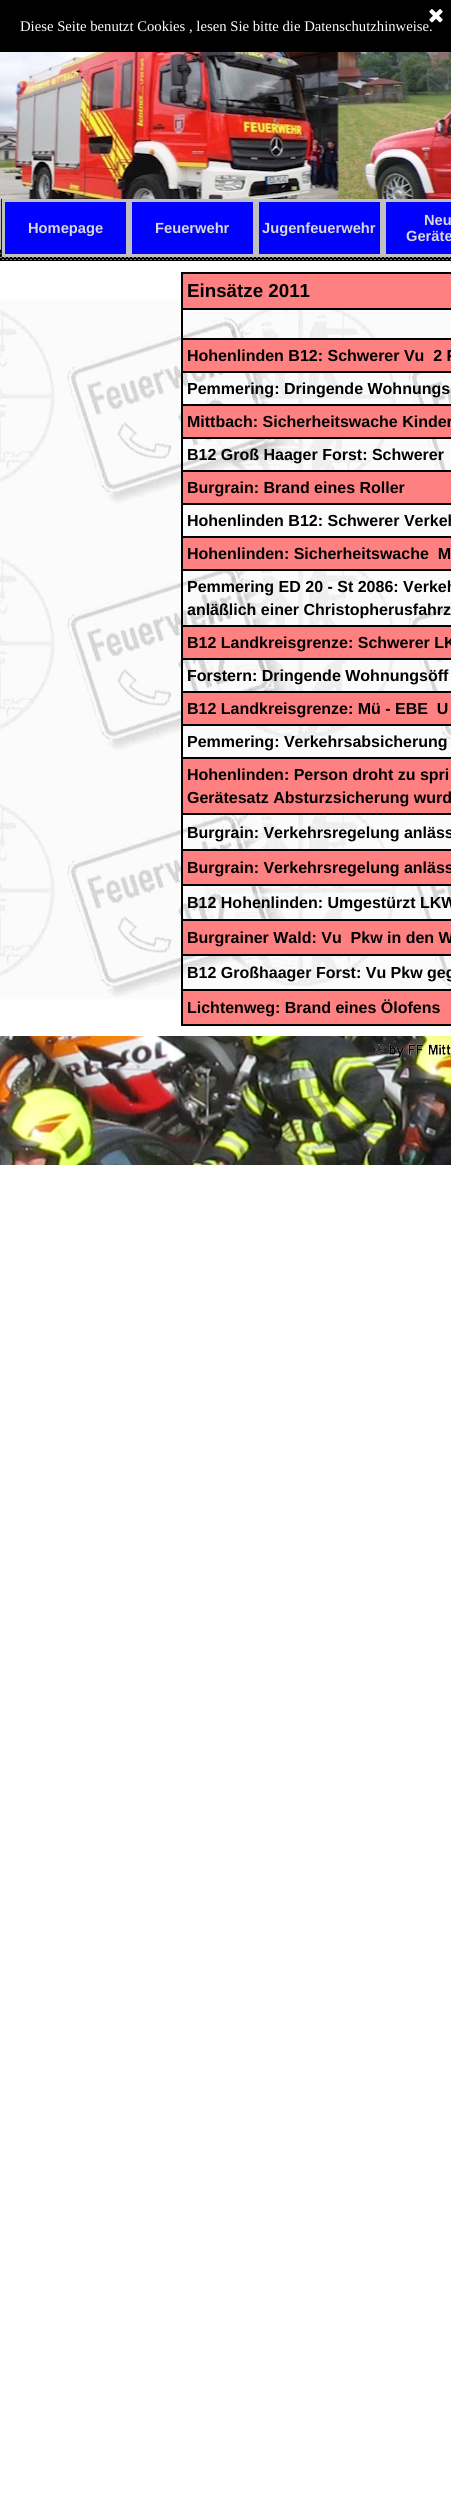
import math
import cairo

surface = cairo.ImageSurface(cairo.FORMAT_RGB24, 451, 2508)
cr = cairo.Context(surface)
options = cairo.FontOptions()
options.set_hint_metrics(cairo.HINT_METRICS_OFF)
options.set_hint_style(cairo.HINT_STYLE_NONE)
cr.set_font_options(options)
cr.set_miter_limit(4)


def rgb(code):
    cr.set_source_rgb(*(v / 255 for v in bytes.fromhex(code[-6:])))


def image(path, x, y, w, h):
    cr.save()
    cr.set_source_surface(cairo.ImageSurface.create_from_png(path), x, y)
    cr.rectangle(x, y, w, h)
    cr.fill()
    cr.restore()


rgb("#ffffff")
cr.paint()
rgb("#000000")
cr.rectangle(0, 0, 451, 52)
cr.fill()
image("img/2.png", 0, 52, 451, 209)
rgb("#0000ff")
cr.rectangle(1, 199, 450, 58)
cr.fill()
cr.new_path()
cr.move_to(3.5, 200.5)
cr.line_to(127.5, 200.5)
cr.line_to(127.5, 255.5)
cr.line_to(3.5, 255.5)
cr.close_path()
rgb("#c0c0c0")
cr.set_line_width(3)
cr.stroke()
cr.new_path()
cr.move_to(130.5, 200.5)
cr.line_to(254.5, 200.5)
cr.line_to(254.5, 255.5)
cr.line_to(130.5, 255.5)
cr.close_path()
cr.stroke()
cr.new_path()
cr.move_to(257.5, 200.5)
cr.line_to(381.5, 200.5)
cr.line_to(381.5, 255.5)
cr.line_to(257.5, 255.5)
cr.close_path()
cr.stroke()
cr.new_path()
cr.move_to(384.5, 200.5)
cr.line_to(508.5, 200.5)
cr.line_to(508.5, 255.5)
cr.line_to(384.5, 255.5)
cr.close_path()
cr.stroke()
image("img/3.png", 0, 300, 451, 699)
for x, y, w, h, color in [
    (183, 274, 268, 34, "#ff8080"),
    (181, 272, 270, 2, "#000000"),
    (181, 308, 270, 2, "#000000"),
    (181, 338, 270, 2, "#000000"),
    (181, 371, 270, 2, "#000000"),
    (181, 404, 270, 2, "#000000"),
    (181, 437, 270, 2, "#000000"),
    (181, 470, 270, 2, "#000000"),
    (181, 503, 270, 2, "#000000"),
    (181, 536, 270, 2, "#000000"),
    (181, 569, 270, 2, "#000000"),
    (181, 625, 270, 2, "#000000"),
    (181, 658, 270, 2, "#000000"),
    (181, 691, 270, 2, "#000000"),
    (181, 724, 270, 2, "#000000"),
    (181, 757, 270, 2, "#000000"),
    (181, 813, 270, 2, "#000000"),
    (181, 849, 270, 2, "#000000"),
    (181, 884, 270, 2, "#000000"),
    (181, 919, 270, 2, "#000000"),
    (181, 954, 270, 2, "#000000"),
    (181, 989, 270, 2, "#000000"),
    (181, 1024, 270, 2, "#000000"),
    (181, 989, 2, 37, "#000000"),
    (181, 954, 2, 37, "#000000"),
    (181, 919, 2, 37, "#000000"),
    (181, 884, 2, 37, "#000000"),
    (181, 849, 2, 37, "#000000"),
    (181, 813, 2, 38, "#000000"),
    (181, 757, 2, 58, "#000000"),
    (181, 724, 2, 35, "#000000"),
    (181, 691, 2, 35, "#000000"),
    (181, 658, 2, 35, "#000000"),
    (181, 625, 2, 35, "#000000"),
    (181, 569, 2, 58, "#000000"),
    (181, 536, 2, 35, "#000000"),
    (181, 503, 2, 35, "#000000"),
    (181, 470, 2, 35, "#000000"),
    (181, 437, 2, 35, "#000000"),
    (181, 404, 2, 35, "#000000"),
    (181, 371, 2, 35, "#000000"),
    (181, 338, 2, 35, "#000000"),
    (181, 308, 2, 32, "#000000"),
    (181, 272, 2, 38, "#000000"),
    (183, 340, 268, 31, "#ff8080"),
    (183, 406, 268, 31, "#ff8080"),
    (183, 472, 268, 31, "#ff8080"),
    (183, 538, 268, 31, "#ff8080"),
    (183, 627, 268, 31, "#ff8080"),
    (183, 693, 268, 31, "#ff8080"),
    (183, 759, 268, 54, "#ff8080"),
    (183, 851, 268, 33, "#ff8080"),
    (183, 921, 268, 33, "#ff8080"),
    (183, 991, 268, 33, "#ff8080"),
]:
    rgb(color)
    cr.rectangle(x, y, w, h)
    cr.fill()
image("img/4.png", 0, 1036, 451, 129)
image("img/5.png", 374, 1042, 77, 16)
cr.select_font_face("Liberation Serif")
cr.set_font_size(14.7)
rgb("#ffffff")
cr.move_to(20, 31)
cr.show_text("Diese Seite benutzt Cookies , lesen Sie bitte die Datenschutzhinweise.")
image("img/1.png", 429, 9, 14, 14)
cr.select_font_face("Liberation Sans", cairo.FONT_SLANT_NORMAL, cairo.FONT_WEIGHT_BOLD)
rgb("#d9d9d9")
for x, y, s in [
    (28, 233, "Homepage"),
    (155, 233, "Feuerwehr"),
    (262, 233, "Jugenfeuerwehr"),
    (424, 225, "Neu"),
    (406, 241, "Geräte"),
]:
    cr.move_to(x, y)
    cr.show_text(s)
cr.set_font_size(18.75)
rgb("#000000")
cr.move_to(187, 297)
cr.show_text("Einsätze 2011")
cr.set_font_size(16)
for x, y, s in [
    (187, 361, "Hohenlinden B12: Schwerer Vu  2 P"),
    (187, 394, "Pemmering: Dringende Wohnungs"),
    (187, 427, "Mittbach: Sicherheitswache Kinder"),
    (187, 460, "B12 Groß Haager Forst: Schwerer"),
    (187, 493, "Burgrain: Brand eines Roller"),
    (187, 526, "Hohenlinden B12: Schwerer Verkeh"),
    (187, 559, "Hohenlinden: Sicherheitswache  M"),
    (187, 592, "Pemmering ED 20 - St 2086: Verkeh"),
    (187, 615, "anläßlich einer Christopherusfahrz"),
    (187, 648, "B12 Landkreisgrenze: Schwerer LK"),
    (187, 681, "Forstern: Dringende Wohnungsöff"),
    (187, 714, "B12 Landkreisgrenze: Mü - EBE  U"),
    (187, 747, "Pemmering: Verkehrsabsicherung"),
    (187, 780, "Hohenlinden: Person droht zu spri"),
    (187, 803, "Gerätesatz Absturzsicherung wurd"),
    (187, 838, "Burgrain: Verkehrsregelung anläss"),
    (187, 873, "Burgrain: Verkehrsregelung anläss"),
    (187, 908, "B12 Hohenlinden: Umgestürzt LKW"),
    (187, 943, "Burgrainer Wald: Vu  Pkw in den W"),
    (187, 978, "B12 Großhaager Forst: Vu Pkw geg"),
    (187, 1013, "Lichtenweg: Brand eines Ölofens"),
]:
    cr.move_to(x, y)
    cr.show_text(s)
surface.write_to_png("page.png")
